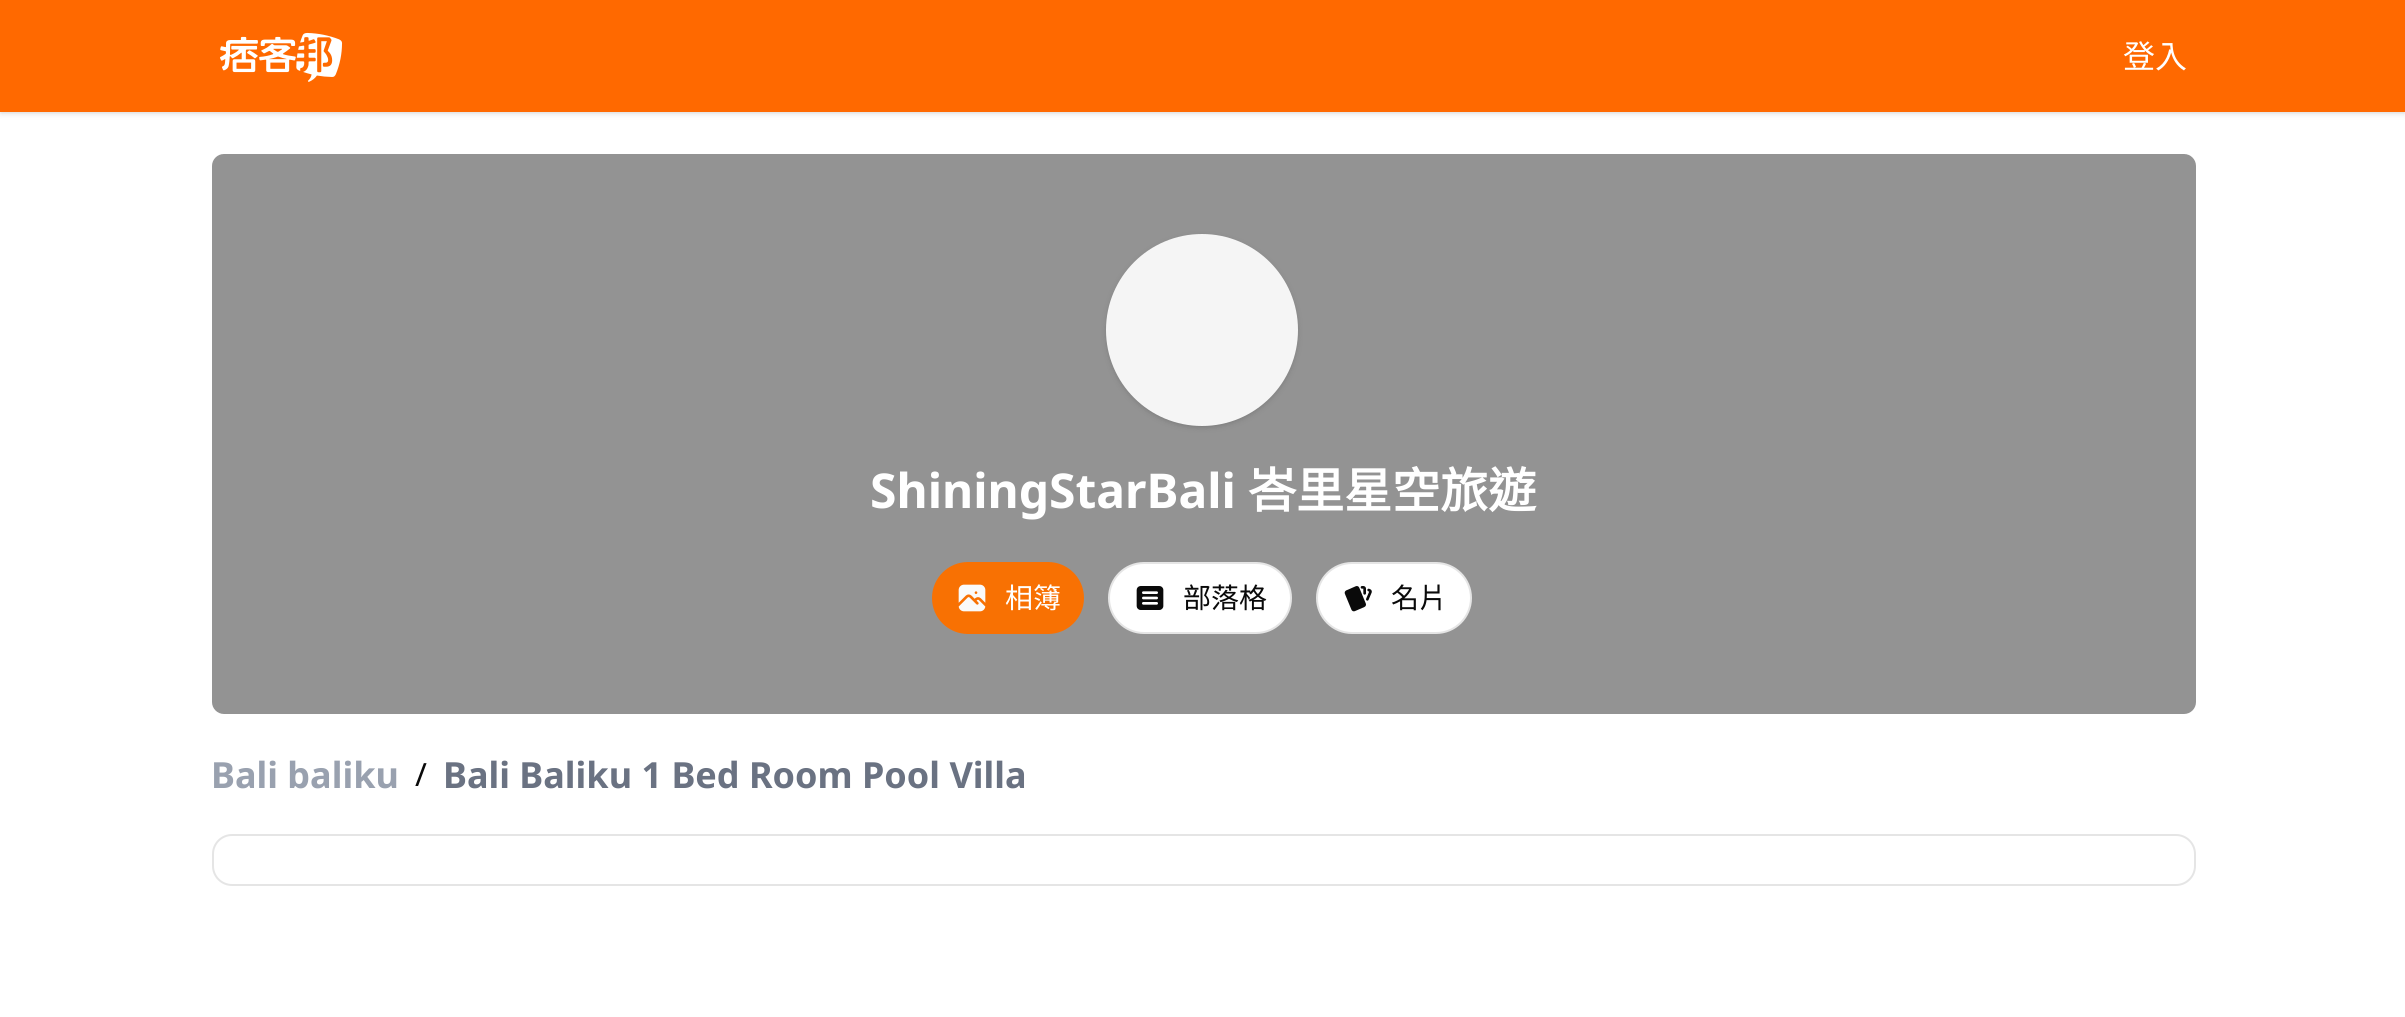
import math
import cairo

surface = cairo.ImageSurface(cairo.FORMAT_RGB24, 2405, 1017)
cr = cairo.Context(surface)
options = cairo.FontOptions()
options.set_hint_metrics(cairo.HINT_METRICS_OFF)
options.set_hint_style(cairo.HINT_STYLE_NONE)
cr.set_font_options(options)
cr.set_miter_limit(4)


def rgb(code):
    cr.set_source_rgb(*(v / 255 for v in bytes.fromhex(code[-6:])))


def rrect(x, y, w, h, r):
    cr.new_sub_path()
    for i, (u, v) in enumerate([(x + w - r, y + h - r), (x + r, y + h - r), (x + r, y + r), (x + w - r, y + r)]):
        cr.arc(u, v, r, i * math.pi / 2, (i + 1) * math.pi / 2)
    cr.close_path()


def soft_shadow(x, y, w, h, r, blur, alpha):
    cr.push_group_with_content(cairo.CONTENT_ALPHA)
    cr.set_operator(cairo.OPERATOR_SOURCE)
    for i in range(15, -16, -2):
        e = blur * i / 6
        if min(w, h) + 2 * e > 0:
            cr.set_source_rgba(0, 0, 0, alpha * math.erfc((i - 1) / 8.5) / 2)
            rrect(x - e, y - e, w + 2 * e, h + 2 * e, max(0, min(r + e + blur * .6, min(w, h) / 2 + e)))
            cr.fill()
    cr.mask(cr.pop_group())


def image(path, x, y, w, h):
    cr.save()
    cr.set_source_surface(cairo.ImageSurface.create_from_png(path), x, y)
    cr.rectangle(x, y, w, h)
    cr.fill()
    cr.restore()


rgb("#ffffff")
cr.paint()
rgb("#000000")
soft_shadow(2, 4, 2402, 108, 0, 2, 0.1)
soft_shadow(0, 2, 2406, 112, 0, 3, 0.1)
rgb("#ff6900")
cr.rectangle(0, 0, 2405, 112)
cr.fill()
image("img/1.png", 220, 32, 123, 50)
rgb("#f5f5f5")
rrect(212, 154, 1984, 560, 12)
cr.fill()
cr.set_source_rgba(0, 0, 0, 0.4)
rrect(212, 154, 1984, 560, 12)
cr.fill()
rgb("#000000")
soft_shadow(1108, 238, 188, 188, 94, 2, 0.1)
soft_shadow(1106, 236, 192, 192, 96, 3, 0.1)
rgb("#f5f5f5")
cr.arc(1202, 330, 96, 0, 2 * math.pi)
cr.fill()
rgb("#f87103")
rrect(932, 562, 152, 72, 36)
cr.fill()
image("img/2.png", 958, 584, 28, 28)
rgb("#ffffff")
rrect(1109, 563, 182, 70, 35)
cr.fill_preserve()
rgb("#e5e5e5")
cr.stroke()
image("img/3.png", 1136, 586, 28, 24)
rgb("#ffffff")
rrect(1317, 563, 154, 70, 35)
cr.fill_preserve()
rgb("#e5e5e5")
cr.stroke()
image("img/4.png", 1344, 586, 28, 26)
rrect(213, 835, 1982, 50, 19)
cr.stroke()
cr.select_font_face("Noto Sans CJK TC")
cr.set_font_size(32)
rgb("#ffffff")
cr.move_to(2123, 68)
cr.show_text("登入")
cr.select_font_face("Noto Sans", cairo.FONT_SLANT_NORMAL, cairo.FONT_WEIGHT_BOLD)
cr.set_font_size(48)
cr.move_to(870, 508)
cr.show_text("ShiningStarBali")
cr.select_font_face("Noto Sans CJK TC", cairo.FONT_SLANT_NORMAL, cairo.FONT_WEIGHT_BOLD)
cr.move_to(1248, 508)
cr.show_text("峇里星空旅遊")
cr.select_font_face("Noto Sans CJK TC")
cr.set_font_size(28)
cr.move_to(1005, 608)
cr.show_text("相簿")
rgb("#0a0a0a")
cr.move_to(1183, 608)
cr.show_text("部落格")
cr.move_to(1391, 608)
cr.show_text("名片")
cr.select_font_face("Noto Sans", cairo.FONT_SLANT_NORMAL, cairo.FONT_WEIGHT_BOLD)
cr.set_font_size(36)
rgb("#99a1af")
cr.move_to(211, 788)
cr.show_text("Bali baliku")
cr.select_font_face("Noto Sans")
cr.set_font_size(32)
rgb("#0a0a0a")
cr.move_to(415, 786)
cr.show_text("/")
cr.select_font_face("Noto Sans", cairo.FONT_SLANT_NORMAL, cairo.FONT_WEIGHT_BOLD)
cr.set_font_size(36)
rgb("#6a7282")
cr.move_to(443, 788)
cr.show_text("Bali Baliku 1 Bed Room Pool Villa")
surface.write_to_png("page.png")
